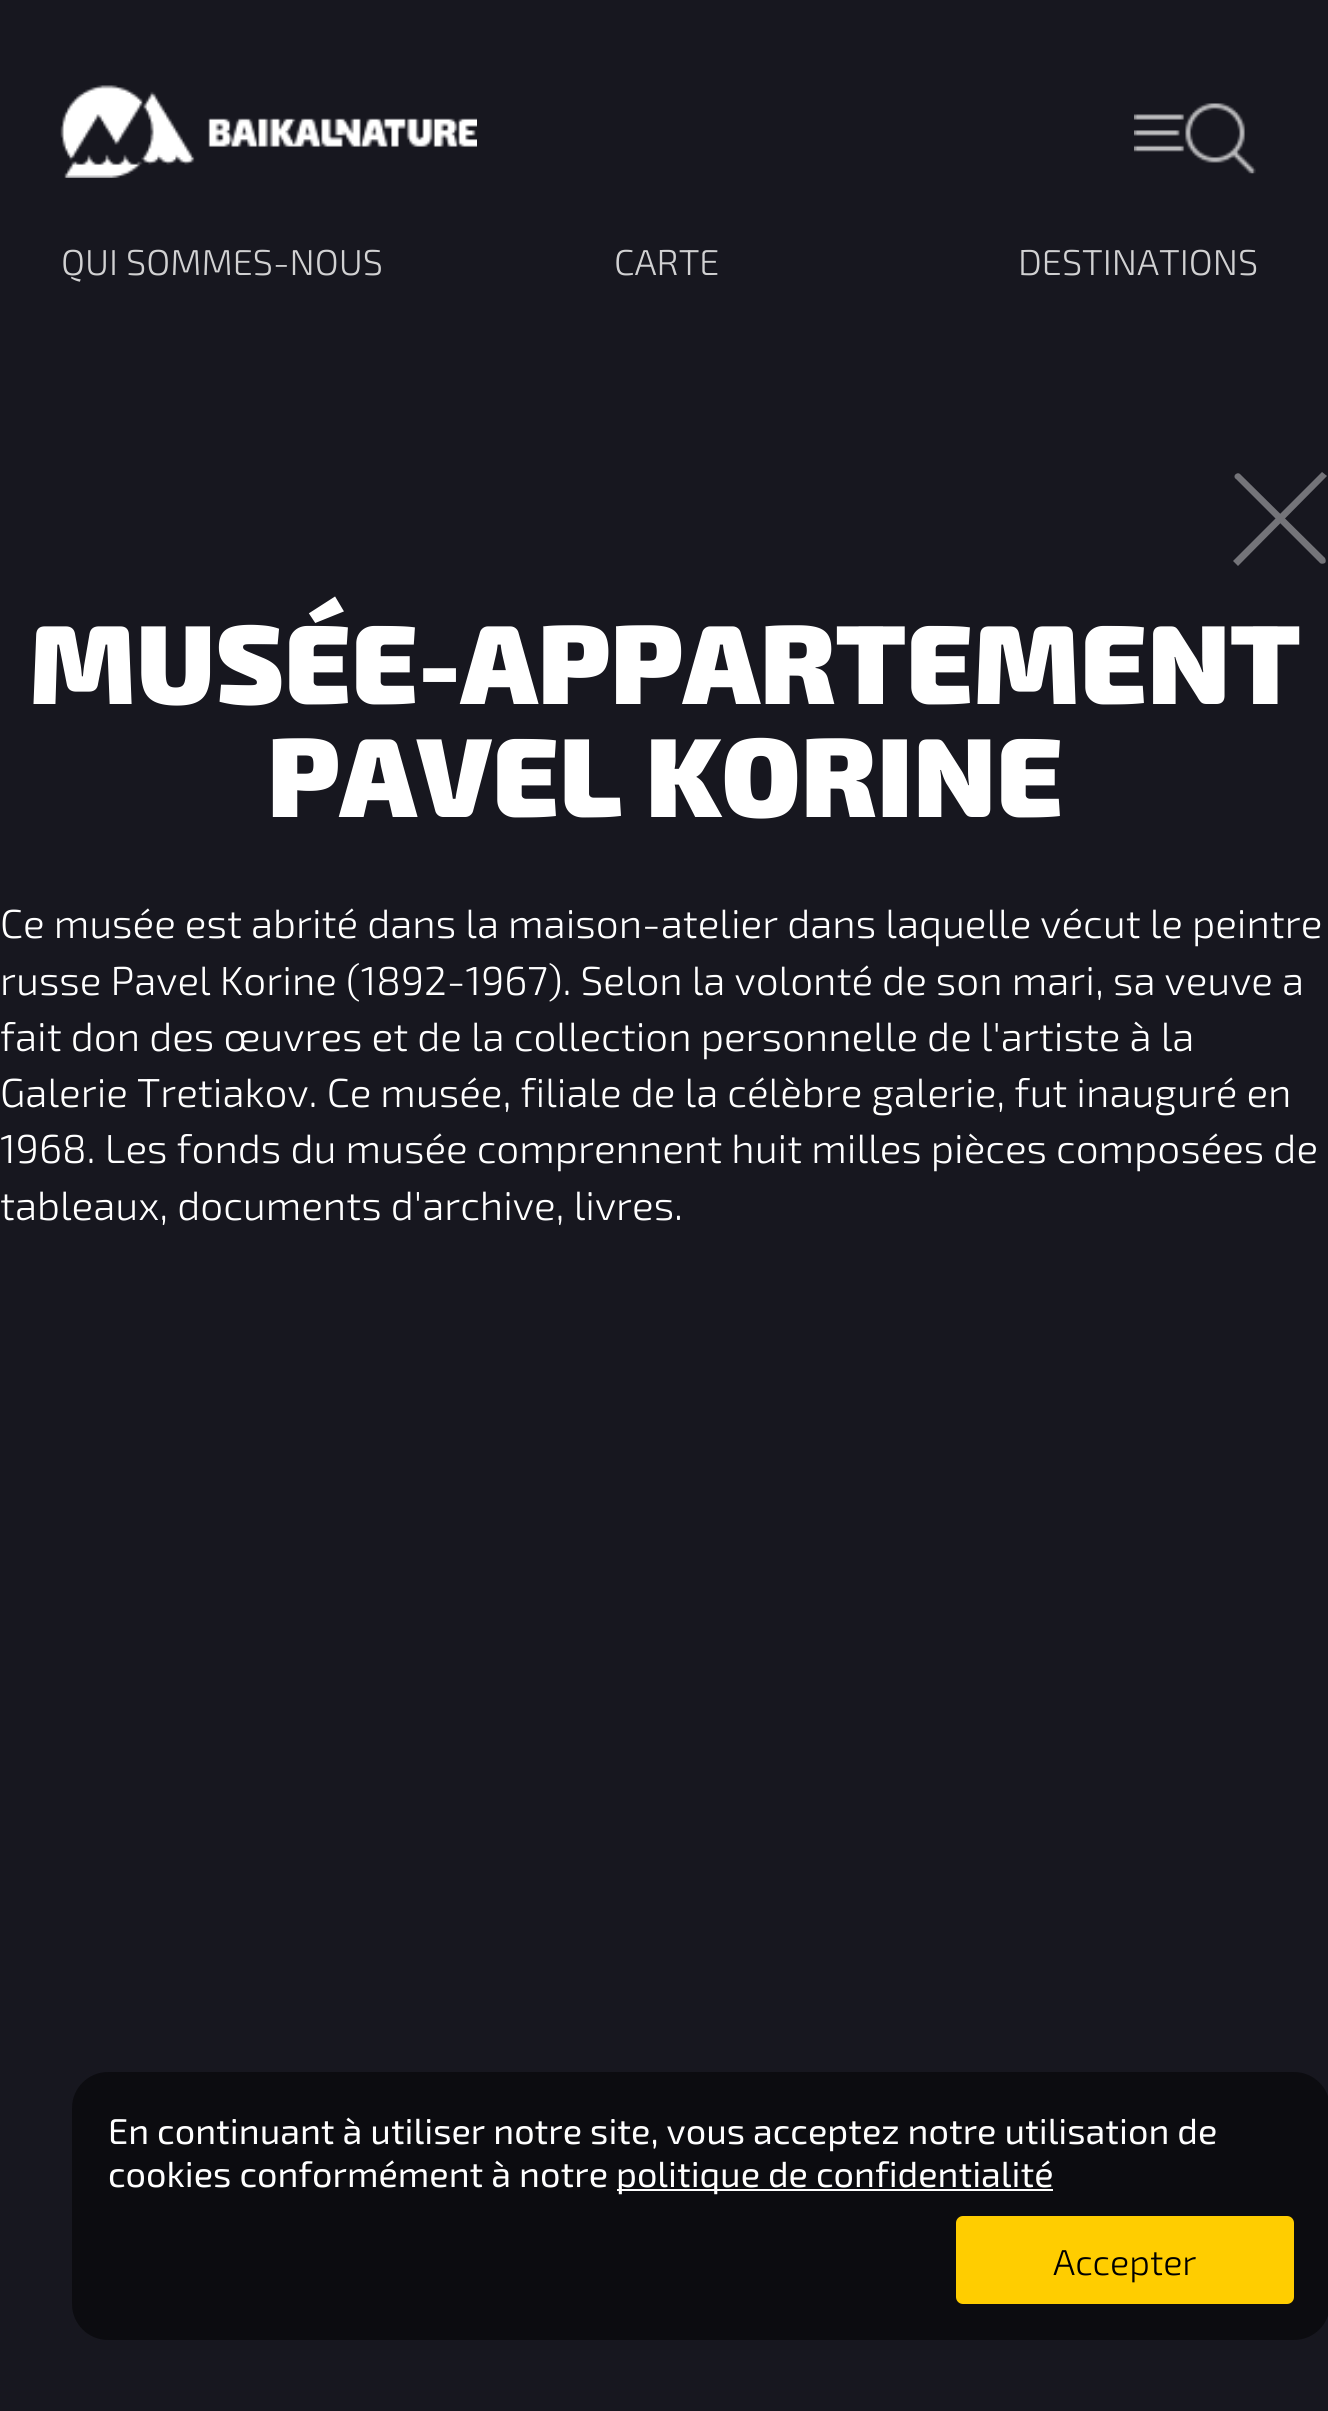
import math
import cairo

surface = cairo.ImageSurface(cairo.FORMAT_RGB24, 1328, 2411)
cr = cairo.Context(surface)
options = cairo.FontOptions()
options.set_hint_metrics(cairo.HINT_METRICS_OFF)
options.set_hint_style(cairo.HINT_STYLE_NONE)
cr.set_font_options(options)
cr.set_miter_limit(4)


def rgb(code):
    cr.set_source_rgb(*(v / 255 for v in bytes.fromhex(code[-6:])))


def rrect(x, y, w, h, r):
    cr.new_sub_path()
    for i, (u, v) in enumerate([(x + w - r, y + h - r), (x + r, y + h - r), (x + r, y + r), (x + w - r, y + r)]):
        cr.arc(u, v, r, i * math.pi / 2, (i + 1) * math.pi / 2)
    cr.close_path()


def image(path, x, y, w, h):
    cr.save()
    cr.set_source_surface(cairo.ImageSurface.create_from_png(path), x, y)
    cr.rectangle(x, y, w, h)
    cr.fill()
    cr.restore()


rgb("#17171f")
cr.paint()
image("img/1.png", 60, 85, 417, 93)
image("img/2.png", 1134, 103, 122, 71)
rgb("#747479")
cr.new_path()
cr.move_to(1240, 474)
cr.line_to(1325, 558)
cr.curve_to(1326, 560, 1326, 562, 1325, 563)
cr.curve_to(1323, 564, 1321, 564, 1320, 563)
cr.line_to(1236, 479)
cr.curve_to(1234, 478, 1234, 475, 1236, 474)
cr.curve_to(1237, 473, 1239, 473, 1240, 474)
cr.close_path()
cr.fill()
cr.new_path()
cr.move_to(1233, 561)
cr.line_to(1322, 472)
cr.line_to(1327, 476)
cr.line_to(1238, 566)
cr.close_path()
cr.fill()
rgb("#0c0c10")
rrect(72, 2072, 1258, 268, 36)
cr.fill()
rgb("#ffffff")
cr.rectangle(617, 2189, 436, 2)
cr.fill()
rgb("#ffcd00")
rrect(956, 2216, 338, 88, 7)
cr.fill()
cr.select_font_face("Exo 2 Light")
cr.set_font_size(36)
rgb("#d1d1d2")
for x, y, s in [
    (61, 275, "QUI SOMMES-NOUS"),
    (614, 275, "CARTE"),
    (1018, 275, "DESTINATIONS"),
]:
    cr.move_to(x, y)
    cr.show_text(s)
cr.select_font_face("Exo 2 Black")
cr.set_font_size(112.5)
rgb("#ffffff")
cr.move_to(29, 704)
cr.show_text("MUSÉE-APPARTEMENT")
cr.move_to(267, 817)
cr.show_text("PAVEL KORINE")
cr.select_font_face("Exo 2 Light")
cr.set_font_size(40.5)
for x, y, s in [
    (0, 938, "Ce musée est abrité dans la maison-atelier dans laquelle vécut le peintre"),
    (0, 995, "russe Pavel Korine (1892-1967). Selon la volonté de son mari, sa veuve a"),
    (0, 1051, "fait don des œuvres et de la collection personnelle de l'artiste à la"),
    (0, 1107, "Galerie Tretiakov. Ce musée, filiale de la célèbre galerie, fut inauguré en"),
    (0, 1163, "1968. Les fonds du musée comprennent huit milles pièces composées de"),
    (0, 1220, "tableaux, documents d'archive, livres."),
]:
    cr.move_to(x, y)
    cr.show_text(s)
cr.select_font_face("Exo 2")
cr.set_font_size(36)
for x, y, s in [
    (108, 2144, "En continuant à utiliser notre site, vous acceptez notre utilisation de"),
    (108, 2187, "cookies conformément à notre"),
    (616, 2187, "politique de confidentialité"),
]:
    cr.move_to(x, y)
    cr.show_text(s)
cr.select_font_face("Exo 2 Light")
rgb("#000000")
cr.move_to(1053, 2275)
cr.show_text("Accepter")
surface.write_to_png("page.png")
